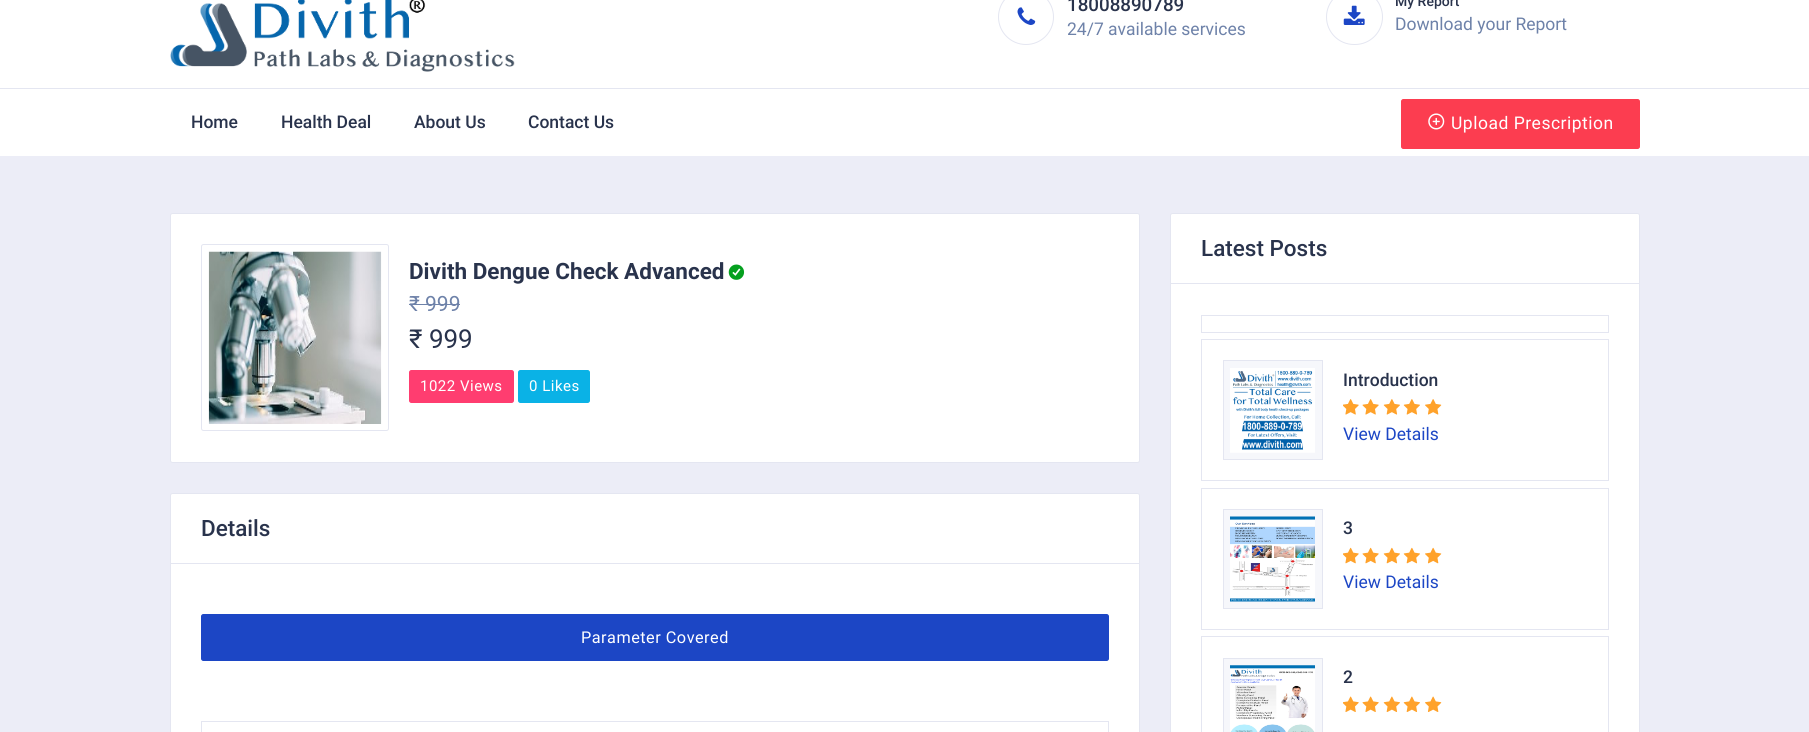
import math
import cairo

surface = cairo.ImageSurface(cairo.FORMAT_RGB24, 1809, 732)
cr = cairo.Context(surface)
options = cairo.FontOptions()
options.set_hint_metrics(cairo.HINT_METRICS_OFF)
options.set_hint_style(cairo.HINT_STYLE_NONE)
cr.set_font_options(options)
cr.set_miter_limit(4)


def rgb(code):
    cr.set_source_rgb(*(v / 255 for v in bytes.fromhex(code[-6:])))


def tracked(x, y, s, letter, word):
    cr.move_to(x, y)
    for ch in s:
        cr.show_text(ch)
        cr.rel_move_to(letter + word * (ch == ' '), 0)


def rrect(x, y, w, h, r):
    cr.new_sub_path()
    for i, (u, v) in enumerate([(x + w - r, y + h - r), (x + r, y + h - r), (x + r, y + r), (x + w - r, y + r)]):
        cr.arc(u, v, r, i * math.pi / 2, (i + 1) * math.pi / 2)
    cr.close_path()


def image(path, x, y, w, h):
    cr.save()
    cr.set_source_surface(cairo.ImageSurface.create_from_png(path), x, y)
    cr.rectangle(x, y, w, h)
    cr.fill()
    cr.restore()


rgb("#ecedf7")
cr.paint()
rgb("#ffffff")
cr.rectangle(0, 0, 1809, 88)
cr.fill()
rgb("#e4e6f1")
cr.rectangle(0, 88, 1809, 1)
cr.fill()
image("img/1.png", 170, 0, 345, 72)
cr.arc(1026, 17, 27.5, 0, 2 * math.pi)
cr.set_line_width(1)
cr.stroke()
image("img/2.png", 1017, 7, 19, 18)
rrect(1326.5, -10.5, 56, 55, 27.5)
cr.stroke()
image("img/3.png", 1343, 5, 22, 20)
rgb("#ffffff")
cr.rectangle(0, 89, 1809, 67)
cr.fill()
rgb("#fc3d50")
rrect(1401.5, 99.5, 238, 49, 2)
cr.fill_preserve()
cr.stroke()
image("img/4.png", 1428, 113, 17, 17)
rgb("#ffffff")
rrect(170.5, 213.5, 969, 249, 2)
cr.fill_preserve()
rgb("#e4e6f1")
cr.stroke()
rrect(201.5, 244.5, 187, 186, 2)
cr.stroke()
image("img/5.png", 208, 251, 174, 173)
image("img/6.png", 728, 264, 17, 16)
rgb("#6e82a9")
cr.rectangle(409, 304, 51, 1)
cr.fill()
rgb("#ff3d70")
rrect(409.5, 370.5, 104, 32, 2)
cr.fill_preserve()
cr.stroke()
rgb("#0ab2e6")
rrect(518.5, 370.5, 71, 32, 2)
cr.fill_preserve()
cr.stroke()
rgb("#ffffff")
rrect(170.5, 493.5, 969, 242, 2)
cr.fill_preserve()
rgb("#e4e6f1")
cr.stroke()
cr.rectangle(171, 563, 968, 1)
cr.fill()
rgb("#1c46c5")
rrect(201.5, 614.5, 907, 46, 2)
cr.fill_preserve()
cr.stroke()
cr.rectangle(201.5, 721.5, 907, 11)
rgb("#e4e6f1")
cr.stroke()
rgb("#ffffff")
rrect(1170.5, 213.5, 469, 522, 2)
cr.fill_preserve()
rgb("#e4e6f1")
cr.stroke()
cr.rectangle(1171, 283, 468, 1)
cr.fill()
cr.rectangle(1201.5, 315.5, 407, 17)
cr.stroke()
cr.rectangle(1201.5, 339.5, 407, 141)
cr.stroke()
rgb("#f6f7fb")
cr.rectangle(1223.5, 360.5, 99, 99)
cr.fill_preserve()
rgb("#e4e6f1")
cr.stroke()
image("img/7.png", 1230, 368, 85, 85)
image("img/8.png", 1343, 399, 16, 16)
image("img/9.png", 1362, 399, 17, 16)
image("img/10.png", 1383, 399, 17, 16)
image("img/10.png", 1403, 399, 17, 16)
image("img/11.png", 1425, 399, 17, 16)
cr.rectangle(1201.5, 488.5, 407, 141)
cr.stroke()
rgb("#f6f7fb")
cr.rectangle(1223.5, 509.5, 99, 99)
cr.fill_preserve()
rgb("#e4e6f1")
cr.stroke()
image("img/12.png", 1230, 516, 85, 86)
image("img/13.png", 1343, 547, 16, 17)
image("img/14.png", 1362, 547, 17, 17)
image("img/15.png", 1383, 547, 17, 17)
image("img/15.png", 1403, 547, 17, 17)
image("img/16.png", 1425, 547, 17, 17)
cr.rectangle(1201.5, 636.5, 407, 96)
cr.stroke()
rgb("#f6f7fb")
cr.rectangle(1223.5, 658.5, 99, 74)
cr.fill_preserve()
rgb("#e4e6f1")
cr.stroke()
image("img/17.png", 1230, 665, 85, 67)
image("img/18.png", 1343, 696, 16, 16)
image("img/19.png", 1362, 696, 17, 16)
image("img/20.png", 1383, 696, 17, 16)
image("img/20.png", 1403, 696, 17, 16)
image("img/21.png", 1425, 696, 17, 16)
cr.select_font_face("Roboto Medium")
cr.set_font_size(18.75)
rgb("#29334c")
cr.move_to(1067, 11)
cr.show_text("18008890789")
cr.select_font_face("Roboto")
cr.set_font_size(17.5)
rgb("#6e82a9")
cr.move_to(1067, 35)
cr.show_text("24/7 available services")
cr.select_font_face("Roboto Medium")
cr.set_font_size(14)
rgb("#29334c")
cr.move_to(1395, 6)
cr.show_text("My Report")
cr.select_font_face("Roboto")
cr.set_font_size(17.5)
rgb("#6e82a9")
cr.move_to(1395, 30)
cr.show_text("Download your Report")
cr.select_font_face("Roboto Medium")
rgb("#29334c")
for x, y, s in [
    (191, 128, "Home"),
    (281, 128, "Health Deal"),
    (414, 128, "About Us"),
    (528, 128, "Contact Us"),
]:
    cr.move_to(x, y)
    cr.show_text(s)
cr.select_font_face("Roboto")
rgb("#ffffff")
tracked(1451, 129, "Upload Prescription", 0.5, 0)
cr.select_font_face("Roboto", cairo.FONT_SLANT_NORMAL, cairo.FONT_WEIGHT_BOLD)
cr.set_font_size(22.5)
rgb("#29334c")
cr.move_to(409, 279)
cr.show_text("Divith Dengue Check Advanced")
cr.select_font_face("Roboto")
cr.set_font_size(21)
rgb("#6e82a9")
cr.move_to(409, 311)
cr.show_text("₹ 999")
cr.set_font_size(26)
rgb("#29334c")
cr.move_to(409, 348)
cr.show_text("₹ 999")
cr.set_font_size(15)
rgb("#ffffff")
tracked(420, 391, "1022 Views", 0.5, 0)
tracked(529, 391, "0 Likes", 0.5, 0)
cr.select_font_face("Roboto Medium")
cr.set_font_size(22.5)
rgb("#29334c")
cr.move_to(201, 536)
cr.show_text("Details")
cr.select_font_face("Roboto")
cr.set_font_size(16.25)
rgb("#ffffff")
tracked(581, 643, "Parameter Covered", 0.5, 0)
cr.select_font_face("Roboto Medium")
cr.set_font_size(22.5)
rgb("#29334c")
cr.move_to(1201, 256)
cr.show_text("Latest Posts")
cr.set_font_size(17.5)
cr.move_to(1343, 386)
cr.show_text("Introduction")
cr.select_font_face("Roboto")
rgb("#1c46c5")
cr.move_to(1343, 440)
cr.show_text("View Details")
cr.select_font_face("Roboto Medium")
rgb("#29334c")
cr.move_to(1343, 534)
cr.show_text("3")
cr.select_font_face("Roboto")
rgb("#1c46c5")
cr.move_to(1343, 588)
cr.show_text("View Details")
cr.select_font_face("Roboto Medium")
rgb("#29334c")
cr.move_to(1343, 683)
cr.show_text("2")
surface.write_to_png("page.png")
